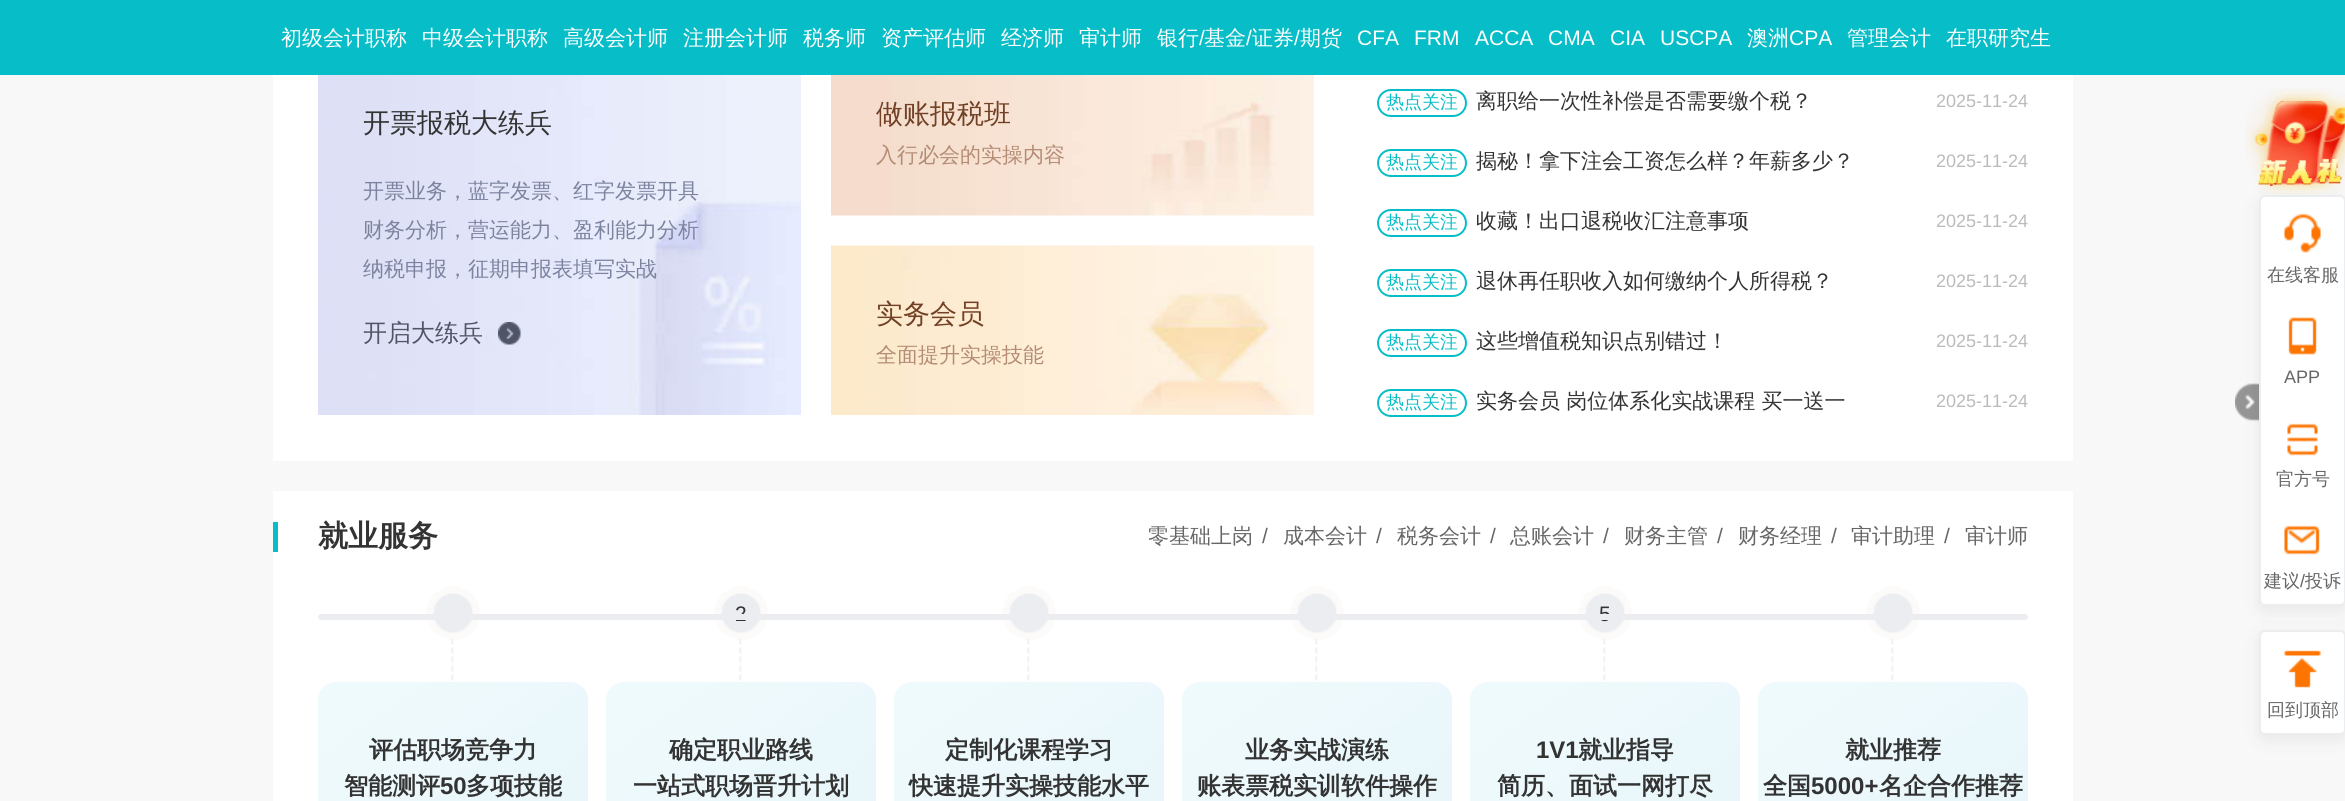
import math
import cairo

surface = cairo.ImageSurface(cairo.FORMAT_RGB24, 2345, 801)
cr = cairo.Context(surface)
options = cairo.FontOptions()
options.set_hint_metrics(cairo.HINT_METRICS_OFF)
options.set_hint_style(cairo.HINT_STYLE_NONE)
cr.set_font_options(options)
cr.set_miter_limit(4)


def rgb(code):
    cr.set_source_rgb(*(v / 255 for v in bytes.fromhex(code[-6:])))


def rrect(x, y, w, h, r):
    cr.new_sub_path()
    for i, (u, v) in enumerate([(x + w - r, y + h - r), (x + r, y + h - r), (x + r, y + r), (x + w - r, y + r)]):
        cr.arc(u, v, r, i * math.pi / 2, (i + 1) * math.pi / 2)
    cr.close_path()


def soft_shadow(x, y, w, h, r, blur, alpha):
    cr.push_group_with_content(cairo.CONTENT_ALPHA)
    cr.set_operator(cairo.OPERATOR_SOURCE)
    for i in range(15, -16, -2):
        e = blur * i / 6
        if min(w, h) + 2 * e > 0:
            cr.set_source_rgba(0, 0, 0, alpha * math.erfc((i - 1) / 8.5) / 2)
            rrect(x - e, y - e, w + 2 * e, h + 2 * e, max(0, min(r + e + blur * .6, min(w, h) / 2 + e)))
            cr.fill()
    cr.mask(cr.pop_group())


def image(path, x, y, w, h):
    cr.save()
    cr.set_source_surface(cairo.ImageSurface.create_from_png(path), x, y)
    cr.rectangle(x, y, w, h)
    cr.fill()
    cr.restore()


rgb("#f8f8f8")
cr.paint()
rgb("#07bdc7")
cr.rectangle(0, 0, 2345, 75)
cr.fill()
rgb("#ffffff")
cr.rectangle(273, 75, 1800, 386)
cr.fill()
image("img/1.png", 318, 75, 483, 340)
image("img/2.png", 498, 322, 23, 23)
image("img/3.png", 831, 75, 483, 141)
image("img/4.png", 831, 245, 483, 170)
rrect(1378, 90, 88, 26, 13)
rgb("#07bdc7")
cr.stroke()
rrect(1378, 150, 88, 26, 13)
cr.stroke()
rrect(1378, 210, 88, 26, 13)
cr.stroke()
rrect(1378, 270, 88, 26, 13)
cr.stroke()
rrect(1378, 330, 88, 26, 13)
cr.stroke()
rrect(1378, 390, 88, 26, 13)
cr.stroke()
image("img/5.png", 2245, 88, 100, 107)
image("img/6.png", 2258, 158, 84, 28)
rgb("#ffffff")
cr.rectangle(273, 491, 1800, 310)
cr.fill()
rgb("#07bdc7")
cr.rectangle(273, 522, 5, 30)
cr.fill()
image("img/7.png", 426, 586, 54, 95)
image("img/8.png", 318, 682, 270, 119)
image("img/7.png", 714, 586, 54, 95)
image("img/8.png", 606, 682, 270, 119)
image("img/9.png", 1002, 586, 54, 95)
image("img/8.png", 894, 682, 270, 119)
image("img/10.png", 1290, 586, 54, 95)
image("img/8.png", 1182, 682, 270, 119)
image("img/9.png", 1578, 586, 54, 95)
image("img/8.png", 1470, 682, 270, 119)
image("img/7.png", 1866, 586, 54, 95)
image("img/8.png", 1758, 682, 270, 119)
rgb("#d9d9d9")
soft_shadow(2259, 200, 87, 411, 6, 8, 0.5)
image("img/11.png", 2235, 383, 24, 38)
rgb("#ffffff")
rrect(2260, 196, 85, 409, 5)
cr.fill_preserve()
rgb("#ecedee")
cr.stroke()
image("img/12.png", 2284, 213, 37, 40)
image("img/13.png", 2288, 317, 29, 38)
image("img/14.png", 2287, 423, 31, 33)
image("img/15.png", 2284, 525, 36, 30)
rgb("#d9d9d9")
soft_shadow(2259, 635, 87, 105, 6, 8, 0.5)
rgb("#ffffff")
rrect(2260, 631, 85, 103, 5)
cr.fill_preserve()
rgb("#ecedee")
cr.stroke()
image("img/16.png", 2284, 650, 37, 38)
cr.select_font_face("WenQuanYi Zen Hei Medium")
cr.set_font_size(21)
rgb("#ffffff")
for x, y, s in [
    (281, 45, "初级会计职称"),
    (422, 45, "中级会计职称"),
    (563, 45, "高级会计师"),
    (683, 45, "注册会计师"),
    (803, 45, "税务师"),
    (881, 45, "资产评估师"),
    (1001, 45, "经济师"),
    (1079, 45, "审计师"),
    (1157, 45, "银行"),
]:
    cr.move_to(x, y)
    cr.show_text(s)
cr.select_font_face("Liberation Sans")
cr.move_to(1199, 45)
cr.show_text("/")
cr.select_font_face("WenQuanYi Zen Hei Medium")
cr.move_to(1204, 45)
cr.show_text("基金")
cr.select_font_face("Liberation Sans")
cr.move_to(1246, 45)
cr.show_text("/")
cr.select_font_face("WenQuanYi Zen Hei Medium")
cr.move_to(1252, 45)
cr.show_text("证券")
cr.select_font_face("Liberation Sans")
cr.move_to(1294, 45)
cr.show_text("/")
cr.select_font_face("WenQuanYi Zen Hei Medium")
cr.move_to(1300, 45)
cr.show_text("期货")
cr.select_font_face("Liberation Sans")
for x, y, s in [
    (1357, 45, "CFA"),
    (1414, 45, "FRM"),
    (1475, 45, "ACCA"),
    (1548, 45, "CMA"),
    (1610, 45, "CIA"),
    (1660, 45, "USCPA"),
]:
    cr.move_to(x, y)
    cr.show_text(s)
cr.select_font_face("WenQuanYi Zen Hei Medium")
cr.move_to(1747, 45)
cr.show_text("澳洲")
cr.select_font_face("Liberation Sans")
cr.move_to(1789, 45)
cr.show_text("CPA")
cr.select_font_face("WenQuanYi Zen Hei Medium")
cr.move_to(1847, 45)
cr.show_text("管理会计")
cr.move_to(1946, 45)
cr.show_text("在职研究生")
cr.set_font_size(27)
rgb("#333333")
cr.move_to(363, 132)
cr.show_text("开票报税大练兵")
cr.set_font_size(21)
rgb("#7c839f")
for x, y, s in [
    (363, 198, "开票业务，蓝字发票、红字发票开具"),
    (363, 237, "财务分析，营运能力、盈利能力分析"),
    (363, 276, "纳税申报，征期申报表填写实战"),
]:
    cr.move_to(x, y)
    cr.show_text(s)
cr.set_font_size(24)
rgb("#505465")
cr.move_to(363, 341)
cr.show_text("开启大练兵")
cr.set_font_size(27)
rgb("#724125")
cr.move_to(876, 123)
cr.show_text("做账报税班")
cr.set_font_size(21)
rgb("#b48c74")
cr.move_to(876, 162)
cr.show_text("入行必会的实操内容")
cr.set_font_size(27)
rgb("#724125")
cr.move_to(876, 323)
cr.show_text("实务会员")
cr.set_font_size(21)
rgb("#b48c74")
cr.move_to(876, 362)
cr.show_text("全面提升实操技能")
cr.set_font_size(18)
rgb("#07bdc7")
cr.move_to(1386, 108)
cr.show_text("热点关注")
cr.set_font_size(21)
rgb("#333333")
cr.move_to(1476, 108)
cr.show_text("离职给一次性补偿是否需要缴个税？")
cr.select_font_face("Liberation Sans")
cr.set_font_size(18)
rgb("#bbbbbb")
cr.move_to(1936, 107)
cr.show_text("2025-11-24")
cr.select_font_face("WenQuanYi Zen Hei Medium")
rgb("#07bdc7")
cr.move_to(1386, 168)
cr.show_text("热点关注")
cr.set_font_size(21)
rgb("#333333")
cr.move_to(1476, 168)
cr.show_text("揭秘！拿下注会工资怎么样？年薪多少？")
cr.select_font_face("Liberation Sans")
cr.set_font_size(18)
rgb("#bbbbbb")
cr.move_to(1936, 167)
cr.show_text("2025-11-24")
cr.select_font_face("WenQuanYi Zen Hei Medium")
rgb("#07bdc7")
cr.move_to(1386, 228)
cr.show_text("热点关注")
cr.set_font_size(21)
rgb("#333333")
cr.move_to(1476, 228)
cr.show_text("收藏！出口退税收汇注意事项")
cr.select_font_face("Liberation Sans")
cr.set_font_size(18)
rgb("#bbbbbb")
cr.move_to(1936, 227)
cr.show_text("2025-11-24")
cr.select_font_face("WenQuanYi Zen Hei Medium")
rgb("#07bdc7")
cr.move_to(1386, 288)
cr.show_text("热点关注")
cr.set_font_size(21)
rgb("#333333")
cr.move_to(1476, 288)
cr.show_text("退休再任职收入如何缴纳个人所得税？")
cr.select_font_face("Liberation Sans")
cr.set_font_size(18)
rgb("#bbbbbb")
cr.move_to(1936, 287)
cr.show_text("2025-11-24")
cr.select_font_face("WenQuanYi Zen Hei Medium")
rgb("#07bdc7")
cr.move_to(1386, 348)
cr.show_text("热点关注")
cr.set_font_size(21)
rgb("#333333")
cr.move_to(1476, 348)
cr.show_text("这些增值税知识点别错过！")
cr.select_font_face("Liberation Sans")
cr.set_font_size(18)
rgb("#bbbbbb")
cr.move_to(1936, 347)
cr.show_text("2025-11-24")
cr.select_font_face("WenQuanYi Zen Hei Medium")
rgb("#07bdc7")
cr.move_to(1386, 408)
cr.show_text("热点关注")
cr.set_font_size(21)
rgb("#333333")
cr.move_to(1476, 408)
cr.show_text("实务会员 岗位体系化实战课程 买一送一")
cr.select_font_face("Liberation Sans")
cr.set_font_size(18)
rgb("#bbbbbb")
cr.move_to(1936, 407)
cr.show_text("2025-11-24")
cr.select_font_face("WenQuanYi Zen Hei", cairo.FONT_SLANT_NORMAL, cairo.FONT_WEIGHT_BOLD)
cr.set_font_size(30)
rgb("#333333")
cr.move_to(318, 546)
cr.show_text("就业服务")
cr.select_font_face("WenQuanYi Zen Hei Medium")
cr.set_font_size(21)
rgb("#666666")
cr.move_to(1148, 543)
cr.show_text("零基础上岗")
cr.select_font_face("Liberation Sans")
cr.move_to(1262, 543)
cr.show_text("/")
cr.select_font_face("WenQuanYi Zen Hei Medium")
cr.move_to(1283, 543)
cr.show_text("成本会计")
cr.select_font_face("Liberation Sans")
cr.move_to(1376, 543)
cr.show_text("/")
cr.select_font_face("WenQuanYi Zen Hei Medium")
cr.move_to(1397, 543)
cr.show_text("税务会计")
cr.select_font_face("Liberation Sans")
cr.move_to(1490, 543)
cr.show_text("/")
cr.select_font_face("WenQuanYi Zen Hei Medium")
cr.move_to(1510, 543)
cr.show_text("总账会计")
cr.select_font_face("Liberation Sans")
cr.move_to(1603, 543)
cr.show_text("/")
cr.select_font_face("WenQuanYi Zen Hei Medium")
cr.move_to(1624, 543)
cr.show_text("财务主管")
cr.select_font_face("Liberation Sans")
cr.move_to(1717, 543)
cr.show_text("/")
cr.select_font_face("WenQuanYi Zen Hei Medium")
cr.move_to(1738, 543)
cr.show_text("财务经理")
cr.select_font_face("Liberation Sans")
cr.move_to(1831, 543)
cr.show_text("/")
cr.select_font_face("WenQuanYi Zen Hei Medium")
cr.move_to(1851, 543)
cr.show_text("审计助理")
cr.select_font_face("Liberation Sans")
cr.move_to(1944, 543)
cr.show_text("/")
cr.select_font_face("WenQuanYi Zen Hei Medium")
cr.move_to(1965, 543)
cr.show_text("审计师")
cr.select_font_face("WenQuanYi Zen Hei", cairo.FONT_SLANT_NORMAL, cairo.FONT_WEIGHT_BOLD)
cr.set_font_size(24)
rgb("#333333")
cr.move_to(369, 758)
cr.show_text("评估职场竞争力")
cr.move_to(344, 794)
cr.show_text("智能测评")
cr.select_font_face("Liberation Sans", cairo.FONT_SLANT_NORMAL, cairo.FONT_WEIGHT_BOLD)
cr.move_to(440, 794)
cr.show_text("50")
cr.select_font_face("WenQuanYi Zen Hei", cairo.FONT_SLANT_NORMAL, cairo.FONT_WEIGHT_BOLD)
cr.move_to(466, 794)
cr.show_text("多项技能")
cr.select_font_face("Liberation Sans")
cr.set_font_size(21)
cr.move_to(735, 621)
cr.show_text("2")
cr.select_font_face("WenQuanYi Zen Hei", cairo.FONT_SLANT_NORMAL, cairo.FONT_WEIGHT_BOLD)
cr.set_font_size(24)
for x, y, s in [
    (669, 758, "确定职业路线"),
    (633, 794, "一站式职场晋升计划"),
    (945, 758, "定制化课程学习"),
    (909, 794, "快速提升实操技能水平"),
    (1245, 758, "业务实战演练"),
    (1197, 794, "账表票税实训软件操作"),
]:
    cr.move_to(x, y)
    cr.show_text(s)
cr.select_font_face("Liberation Sans")
cr.set_font_size(21)
cr.move_to(1599, 621)
cr.show_text("5")
cr.select_font_face("Liberation Sans", cairo.FONT_SLANT_NORMAL, cairo.FONT_WEIGHT_BOLD)
cr.set_font_size(24)
cr.move_to(1536, 758)
cr.show_text("1V1")
cr.select_font_face("WenQuanYi Zen Hei", cairo.FONT_SLANT_NORMAL, cairo.FONT_WEIGHT_BOLD)
for x, y, s in [
    (1578, 758, "就业指导"),
    (1497, 794, "简历、面试一网打尽"),
    (1845, 758, "就业推荐"),
    (1763, 794, "全国"),
]:
    cr.move_to(x, y)
    cr.show_text(s)
cr.select_font_face("Liberation Sans", cairo.FONT_SLANT_NORMAL, cairo.FONT_WEIGHT_BOLD)
cr.move_to(1811, 794)
cr.show_text("5000+")
cr.select_font_face("WenQuanYi Zen Hei", cairo.FONT_SLANT_NORMAL, cairo.FONT_WEIGHT_BOLD)
cr.move_to(1879, 794)
cr.show_text("名企合作推荐")
rgb("#ebedf1")
rrect(318, 614, 1710, 6, 3)
cr.fill()
cr.select_font_face("WenQuanYi Zen Hei Medium")
cr.set_font_size(18)
rgb("#666666")
cr.move_to(2267, 281)
cr.show_text("在线客服")
cr.select_font_face("Liberation Sans")
cr.move_to(2284, 383)
cr.show_text("APP")
cr.select_font_face("WenQuanYi Zen Hei Medium")
cr.move_to(2276, 485)
cr.show_text("官方号")
cr.move_to(2264, 587)
cr.show_text("建议")
cr.select_font_face("Liberation Sans")
cr.move_to(2300, 587)
cr.show_text("/")
cr.select_font_face("WenQuanYi Zen Hei Medium")
cr.move_to(2305, 587)
cr.show_text("投诉")
cr.move_to(2267, 716)
cr.show_text("回到顶部")
surface.write_to_png("page.png")
